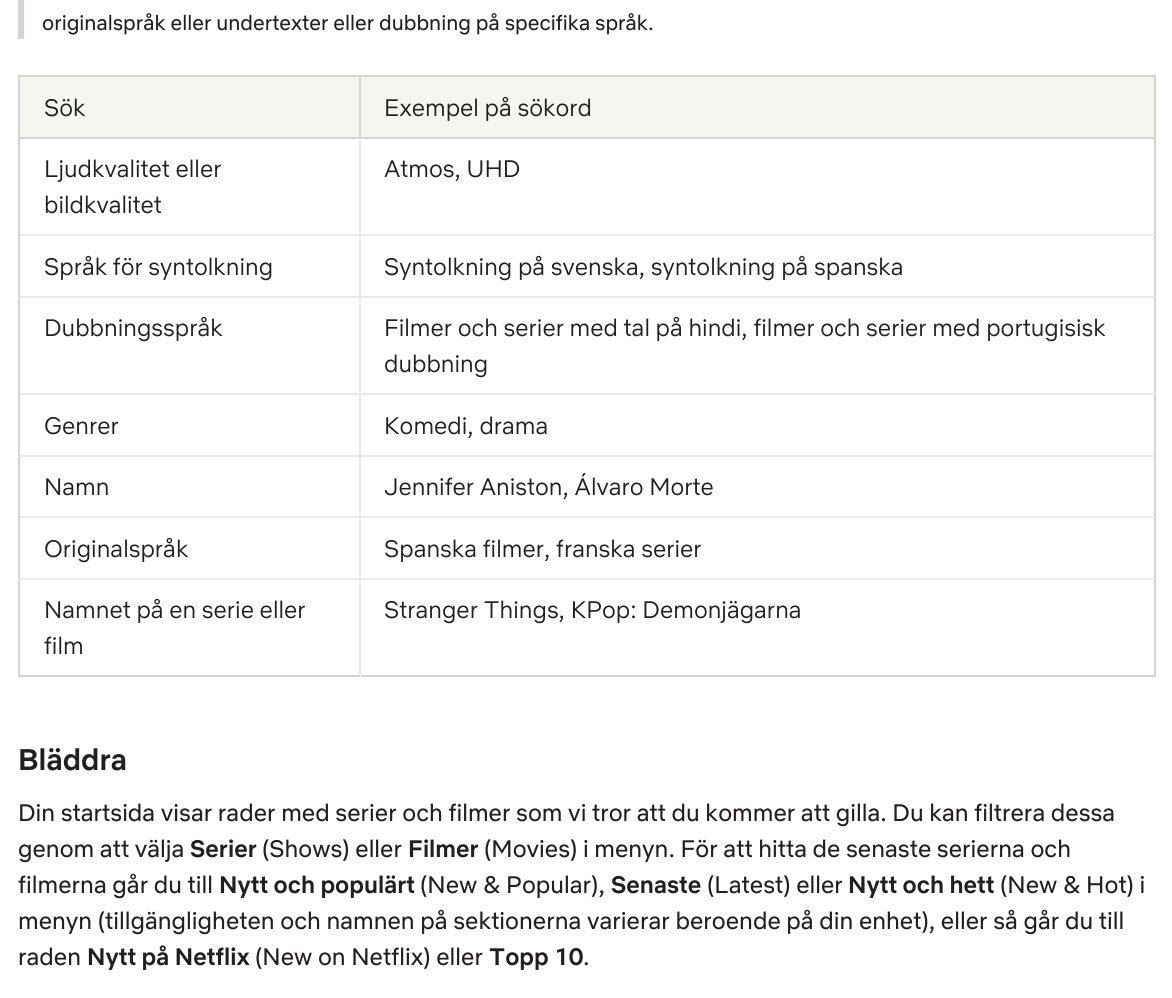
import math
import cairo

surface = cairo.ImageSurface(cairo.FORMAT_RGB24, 1172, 998)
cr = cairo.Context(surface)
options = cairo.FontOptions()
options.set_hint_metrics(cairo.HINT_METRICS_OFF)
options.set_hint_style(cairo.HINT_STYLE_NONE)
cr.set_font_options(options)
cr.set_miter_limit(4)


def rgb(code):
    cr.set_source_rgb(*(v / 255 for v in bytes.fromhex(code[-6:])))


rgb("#ffffff")
cr.paint()
for x, y, w, h, color in [
    (18, 0, 6, 39, "#d5d4d1"),
    (18, 75, 1137, 2, "#d5d4d1"),
    (1154, 75, 2, 62, "#d5d4d1"),
    (361, 675, 794, 2, "#d5d4d1"),
    (18, 75, 2, 62, "#d5d4d1"),
    (20, 77, 339, 60, "#f5f5f1"),
    (1154, 137, 2, 540, "#d5d4d1"),
    (359, 578, 2, 99, "#eaeae6"),
    (359, 578, 796, 2, "#eaeae6"),
    (359, 516, 2, 63, "#eaeae6"),
    (359, 516, 796, 2, "#eaeae6"),
    (359, 455, 2, 63, "#eaeae6"),
    (359, 455, 796, 2, "#eaeae6"),
    (359, 393, 2, 63, "#eaeae6"),
    (359, 393, 796, 2, "#eaeae6"),
    (359, 296, 2, 99, "#eaeae6"),
    (359, 296, 796, 2, "#eaeae6"),
    (359, 234, 2, 63, "#eaeae6"),
    (359, 234, 796, 2, "#eaeae6"),
    (359, 137, 2, 99, "#eaeae6"),
    (359, 137, 796, 2, "#d5d4d1"),
    (359, 75, 2, 63, "#d5d4d1"),
    (18, 675, 342, 2, "#d5d4d1"),
    (18, 578, 2, 99, "#d5d4d1"),
    (18, 578, 342, 2, "#eaeae6"),
    (18, 516, 2, 63, "#d5d4d1"),
    (18, 516, 342, 2, "#eaeae6"),
    (18, 455, 2, 63, "#d5d4d1"),
    (18, 455, 342, 2, "#eaeae6"),
    (18, 393, 2, 63, "#d5d4d1"),
    (18, 393, 342, 2, "#eaeae6"),
    (18, 296, 2, 99, "#d5d4d1"),
    (18, 296, 342, 2, "#eaeae6"),
    (18, 234, 2, 63, "#d5d4d1"),
    (18, 234, 342, 2, "#eaeae6"),
    (18, 137, 2, 99, "#d5d4d1"),
    (18, 137, 342, 2, "#d5d4d1"),
    (361, 77, 793, 60, "#f5f5f1"),
]:
    rgb(color)
    cr.rectangle(x, y, w, h)
    cr.fill()
cr.select_font_face("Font")
cr.set_font_size(21)
rgb("#221f1f")
cr.move_to(42, 30)
cr.show_text("originalspråk eller undertexter eller dubbning på specifika språk.")
cr.select_font_face("Font Light")
cr.set_font_size(24)
for x, y, s in [
    (44, 116, "Sök"),
    (384, 116, "Exempel på sökord"),
    (44, 177, "Ljudkvalitet eller"),
    (44, 213, "bildkvalitet"),
    (384, 177, "Atmos, UHD"),
    (44, 275, "Språk för syntolkning"),
    (384, 275, "Syntolkning på svenska, syntolkning på spanska"),
    (44, 336, "Dubbningsspråk"),
    (384, 336, "Filmer och serier med tal på hindi, filmer och serier med portugisisk"),
    (384, 372, "dubbning"),
    (44, 434, "Genrer"),
    (384, 434, "Komedi, drama"),
    (44, 495, "Namn"),
    (384, 495, "Jennifer Aniston, Álvaro Morte"),
    (44, 557, "Originalspråk"),
    (384, 557, "Spanska filmer, franska serier"),
    (44, 618, "Namnet på en serie eller"),
    (44, 654, "film"),
    (384, 618, "Stranger Things, KPop: Demonjägarna"),
]:
    cr.move_to(x, y)
    cr.show_text(s)
cr.select_font_face("Font Medium")
cr.set_font_size(30)
cr.move_to(18, 770)
cr.show_text("Bläddra")
cr.select_font_face("Font")
cr.set_font_size(24)
cr.move_to(18, 821)
cr.show_text("Din startsida visar rader med serier och filmer som vi tror att du kommer att gilla. Du kan filtrera dessa")
cr.move_to(18, 857)
cr.show_text("genom att välja")
cr.select_font_face("Font Medium")
cr.move_to(190, 857)
cr.show_text("Serier")
cr.select_font_face("Font")
cr.move_to(262, 857)
cr.show_text("(Shows) eller")
cr.select_font_face("Font Medium")
cr.move_to(408, 857)
cr.show_text("Filmer")
cr.select_font_face("Font")
cr.move_to(484, 857)
cr.show_text("(Movies) i menyn. För att hitta de senaste serierna och")
cr.move_to(18, 893)
cr.show_text("filmerna går du till")
cr.select_font_face("Font Medium")
cr.move_to(219, 893)
cr.show_text("Nytt och populärt")
cr.select_font_face("Font")
cr.move_to(420, 893)
cr.show_text("(New & Popular),")
cr.select_font_face("Font Medium")
cr.move_to(611, 893)
cr.show_text("Senaste")
cr.select_font_face("Font")
cr.move_to(707, 893)
cr.show_text("(Latest) eller")
cr.select_font_face("Font Medium")
cr.move_to(848, 893)
cr.show_text("Nytt och hett")
cr.select_font_face("Font")
for x, y, s in [
    (1000, 893, "(New & Hot) i"),
    (18, 929, "menyn (tillgängligheten och namnen på sektionerna varierar beroende på din enhet), eller så går du till"),
    (18, 965, "raden"),
]:
    cr.move_to(x, y)
    cr.show_text(s)
cr.select_font_face("Font Medium")
cr.move_to(87, 965)
cr.show_text("Nytt på Netflix")
cr.select_font_face("Font")
cr.move_to(255, 965)
cr.show_text("(New on Netflix) eller")
cr.select_font_face("Font Medium")
cr.move_to(489, 965)
cr.show_text("Topp 10")
cr.select_font_face("Font")
cr.move_to(583, 965)
cr.show_text(".")
surface.write_to_png("page.png")
